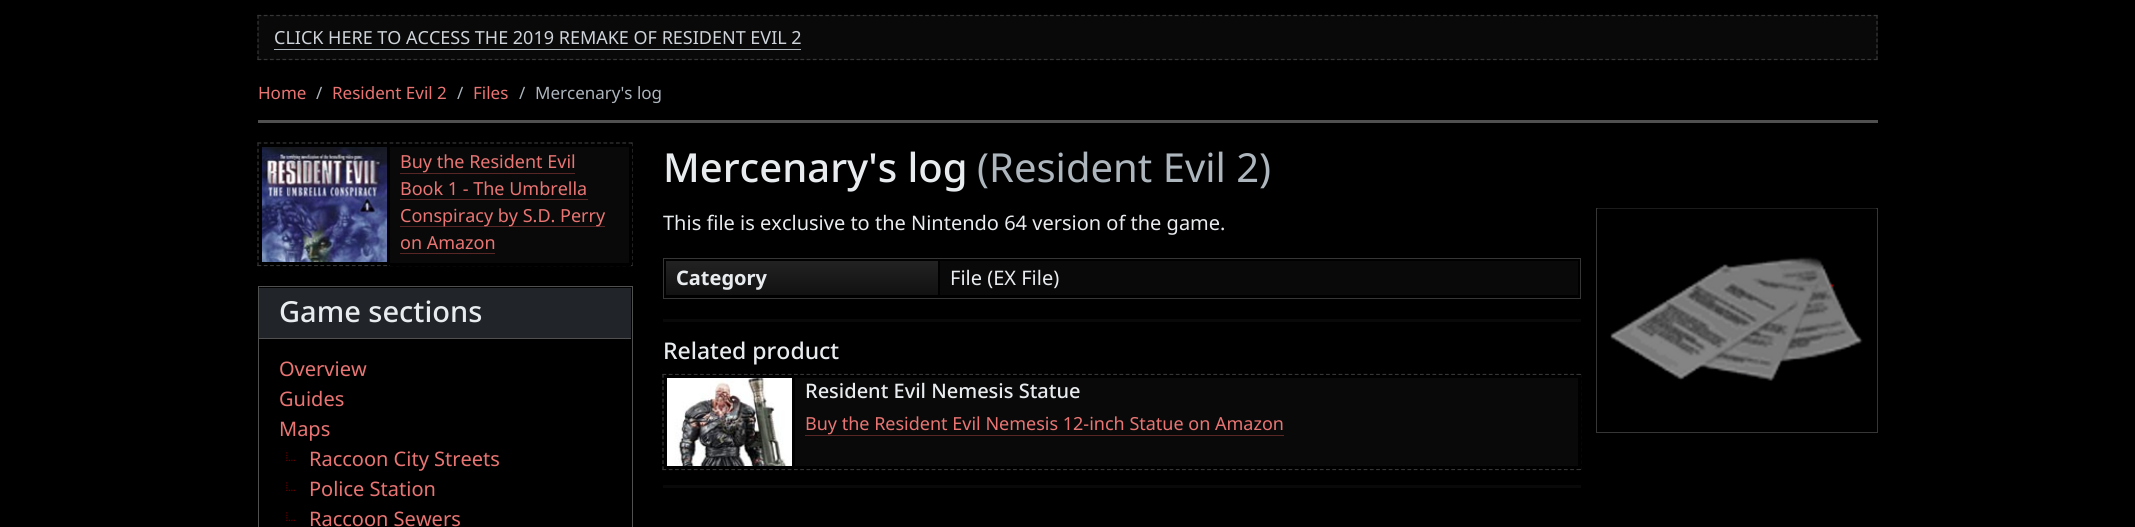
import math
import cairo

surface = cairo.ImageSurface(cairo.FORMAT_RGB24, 2135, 527)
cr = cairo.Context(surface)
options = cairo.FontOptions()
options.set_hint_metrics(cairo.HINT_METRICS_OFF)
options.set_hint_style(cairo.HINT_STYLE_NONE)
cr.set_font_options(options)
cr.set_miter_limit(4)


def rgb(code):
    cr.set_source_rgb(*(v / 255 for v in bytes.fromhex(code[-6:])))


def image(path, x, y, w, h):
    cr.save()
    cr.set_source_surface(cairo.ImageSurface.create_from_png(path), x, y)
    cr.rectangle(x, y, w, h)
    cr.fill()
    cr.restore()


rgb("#000000")
cr.paint()
rgb("#090909")
cr.rectangle(258, 15, 1620, 45)
cr.fill()
cr.new_path()
cr.move_to(257.5, 15.5)
cr.line_to(1877.5, 15.5)
rgb("#363636")
cr.set_line_width(1.2)
cr.set_dash([3.75, 2.49])
cr.stroke()
cr.new_path()
cr.move_to(1877, 15)
cr.line_to(1877, 60)
cr.set_dash([3.75, 2.14])
cr.stroke()
cr.new_path()
cr.move_to(257.5, 59.5)
cr.line_to(1877.5, 59.5)
cr.set_dash([3.75, 2.49])
cr.stroke()
cr.new_path()
cr.move_to(258, 15)
cr.line_to(258, 60)
cr.set_dash([3.75, 2.14])
cr.stroke()
rgb("#adb5bd")
cr.rectangle(274, 49, 527, 1)
cr.fill()
rgb("#505050")
cr.rectangle(258, 120, 1620, 3)
cr.fill()
cr.new_path()
cr.move_to(257.5, 143)
cr.line_to(632.5, 143)
rgb("#363636")
cr.set_dash([3.75, 2.54])
cr.stroke()
cr.new_path()
cr.move_to(632, 142.5)
cr.line_to(632, 266)
cr.set_dash([3.75, 2.56])
cr.stroke()
cr.new_path()
cr.move_to(257.5, 265.5)
cr.line_to(632.5, 265.5)
cr.set_dash([3.75, 2.54])
cr.stroke()
cr.new_path()
cr.move_to(258, 142.5)
cr.line_to(258, 266)
cr.set_dash([3.75, 2.56])
cr.stroke()
image("img/1.png", 262, 147, 125, 115)
cr.rectangle(260.5, 145.5, 128, 118)
rgb("#000000")
cr.set_line_width(3)
cr.set_dash([])
cr.stroke()
for x, y, w, h, color in [
    (390, 147, 239, 116, "#090909"),
    (629, 144, 3, 121, "#000000"),
    (390, 264, 241, 2, "#000000"),
    (400, 173, 175, 1, "#582625"),
    (400, 199, 188, 1, "#582625"),
    (400, 226, 205, 1, "#582625"),
    (400, 253, 95, 1, "#582625"),
]:
    rgb(color)
    cr.rectangle(x, y, w, h)
    cr.fill()
cr.rectangle(258.5, 286.5, 374, 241)
rgb("#505050")
cr.set_line_width(1)
cr.stroke()
rgb("#212529")
cr.rectangle(259, 288, 372, 50)
cr.fill()
rgb("#505050")
cr.rectangle(259, 338, 372, 1)
cr.fill()
image("img/2.png", 286, 452, 9, 9)
image("img/2.png", 286, 482, 9, 9)
image("img/2.png", 286, 512, 9, 9)
cr.rectangle(663.5, 258.5, 917, 40)
rgb("#363636")
cr.stroke()
gradient = cairo.LinearGradient(802, 261, 802, 295)
gradient.add_color_stop_rgba(0, 0.133, 0.133, 0.133, 1)
gradient.add_color_stop_rgba(1, 0.067, 0.067, 0.067, 1)
cr.set_source(gradient)
cr.rectangle(666, 261, 272, 34)
cr.fill()
for x, y, w, h, color in [
    (940, 261, 638, 34, "#090909"),
    (663, 319, 918, 3, "#090909"),
    (663, 485, 918, 3, "#090909"),
]:
    rgb(color)
    cr.rectangle(x, y, w, h)
    cr.fill()
cr.new_path()
cr.move_to(662.5, 374.5)
cr.line_to(1581, 374.5)
rgb("#363636")
cr.set_line_width(1.2)
cr.set_dash([3.75, 2.51])
cr.stroke()
cr.new_path()
cr.move_to(1580.5, 374)
cr.line_to(1580.5, 470)
cr.set_dash([3.75, 2.41])
cr.stroke()
cr.new_path()
cr.move_to(662.5, 469.5)
cr.line_to(1581, 469.5)
cr.set_dash([3.75, 2.51])
cr.stroke()
cr.new_path()
cr.move_to(663, 374)
cr.line_to(663, 470)
cr.set_dash([3.75, 2.41])
cr.stroke()
image("img/3.png", 667, 378, 125, 88)
cr.rectangle(665.5, 376.5, 128, 91)
rgb("#000000")
cr.set_line_width(3)
cr.set_dash([])
cr.stroke()
for x, y, w, h, color in [
    (795, 378, 783, 88, "#090909"),
    (795, 375, 785, 3, "#000000"),
    (1578, 375, 3, 94, "#000000"),
    (795, 468, 785, 1, "#000000"),
    (805, 435, 479, 1, "#582625"),
]:
    rgb(color)
    cr.rectangle(x, y, w, h)
    cr.fill()
cr.rectangle(1596.5, 208.5, 281, 224)
rgb("#363636")
cr.set_line_width(1)
cr.stroke()
image("img/4.png", 1597, 208, 280, 173)
cr.select_font_face("Noto Sans")
cr.set_font_size(18)
rgb("#ced4da")
cr.move_to(274, 44)
cr.show_text("CLICK HERE TO ACCESS THE 2019 REMAKE OF RESIDENT EVIL 2")
cr.set_font_size(17)
rgb("#e87573")
cr.move_to(258, 99)
cr.show_text("Home")
rgb("#adb5bd")
cr.move_to(316, 99)
cr.show_text("/")
rgb("#e87573")
cr.move_to(332, 99)
cr.show_text("Resident Evil 2")
rgb("#adb5bd")
cr.move_to(457, 99)
cr.show_text("/")
rgb("#e87573")
cr.move_to(473, 99)
cr.show_text("Files")
rgb("#adb5bd")
cr.move_to(519, 99)
cr.show_text("/")
cr.move_to(535, 99)
cr.show_text("Mercenary's log")
cr.set_font_size(18)
rgb("#e87573")
for x, y, s in [
    (400, 168, "Buy the Resident Evil"),
    (400, 195, "Book 1 - The Umbrella"),
    (400, 222, "Conspiracy by S.D. Perry"),
    (400, 249, "on Amazon"),
]:
    cr.move_to(x, y)
    cr.show_text(s)
cr.select_font_face("Noto Sans Medium")
cr.set_font_size(29)
rgb("#e9ecef")
cr.move_to(279, 322)
cr.show_text("Game sections")
cr.select_font_face("Noto Sans")
cr.set_font_size(20)
rgb("#e87573")
for x, y, s in [
    (279, 376, "Overview"),
    (279, 406, "Guides"),
    (279, 436, "Maps"),
    (309, 466, "Raccoon City Streets"),
    (309, 496, "Police Station"),
    (309, 526, "Raccoon Sewers"),
]:
    cr.move_to(x, y)
    cr.show_text(s)
cr.select_font_face("Noto Sans Medium")
cr.set_font_size(40)
rgb("#e9ecef")
cr.move_to(663, 182)
cr.show_text("Mercenary's log")
cr.select_font_face("Noto Sans")
rgb("#adb5bd")
cr.move_to(977, 182)
cr.show_text("(Resident Evil 2)")
cr.set_font_size(20)
rgb("#e9ecef")
cr.move_to(663, 230)
cr.show_text("This file is exclusive to the Nintendo 64 version of the game.")
cr.select_font_face("Noto Sans", cairo.FONT_SLANT_NORMAL, cairo.FONT_WEIGHT_BOLD)
cr.move_to(676, 285)
cr.show_text("Category")
cr.select_font_face("Noto Sans")
cr.move_to(950, 285)
cr.show_text("File (EX File)")
cr.select_font_face("Noto Sans Medium")
cr.set_font_size(23)
cr.move_to(663, 359)
cr.show_text("Related product")
cr.set_font_size(20)
cr.move_to(805, 398)
cr.show_text("Resident Evil Nemesis Statue")
cr.select_font_face("Noto Sans")
cr.set_font_size(18)
rgb("#e87573")
cr.move_to(805, 430)
cr.show_text("Buy the Resident Evil Nemesis 12-inch Statue on Amazon")
surface.write_to_png("page.png")
